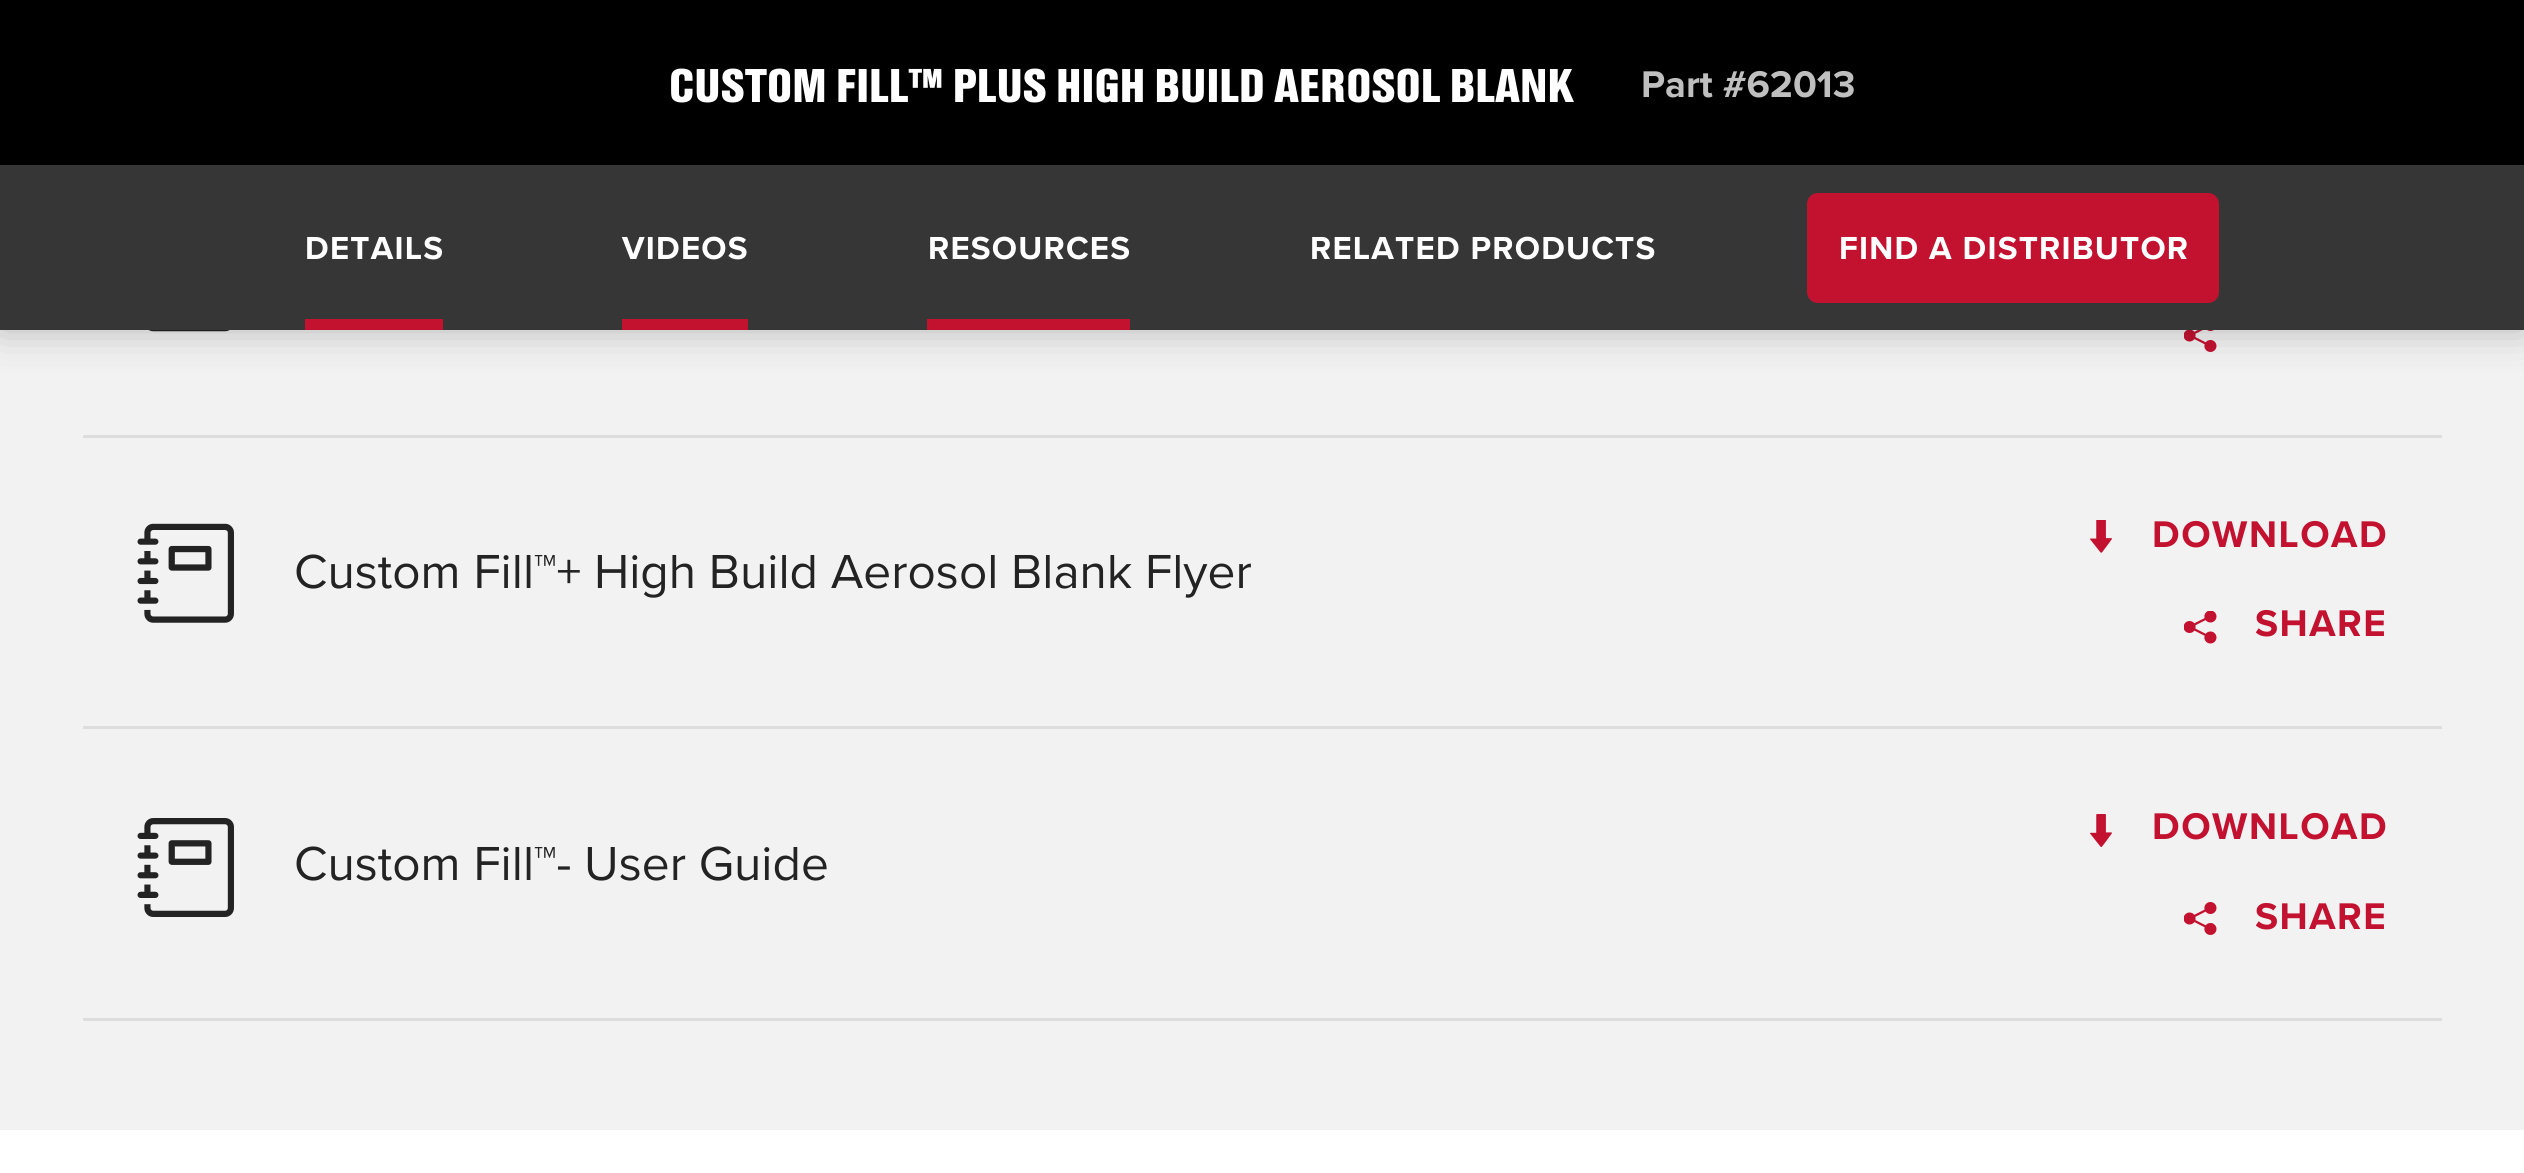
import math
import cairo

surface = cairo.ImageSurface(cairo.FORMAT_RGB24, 2524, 1173)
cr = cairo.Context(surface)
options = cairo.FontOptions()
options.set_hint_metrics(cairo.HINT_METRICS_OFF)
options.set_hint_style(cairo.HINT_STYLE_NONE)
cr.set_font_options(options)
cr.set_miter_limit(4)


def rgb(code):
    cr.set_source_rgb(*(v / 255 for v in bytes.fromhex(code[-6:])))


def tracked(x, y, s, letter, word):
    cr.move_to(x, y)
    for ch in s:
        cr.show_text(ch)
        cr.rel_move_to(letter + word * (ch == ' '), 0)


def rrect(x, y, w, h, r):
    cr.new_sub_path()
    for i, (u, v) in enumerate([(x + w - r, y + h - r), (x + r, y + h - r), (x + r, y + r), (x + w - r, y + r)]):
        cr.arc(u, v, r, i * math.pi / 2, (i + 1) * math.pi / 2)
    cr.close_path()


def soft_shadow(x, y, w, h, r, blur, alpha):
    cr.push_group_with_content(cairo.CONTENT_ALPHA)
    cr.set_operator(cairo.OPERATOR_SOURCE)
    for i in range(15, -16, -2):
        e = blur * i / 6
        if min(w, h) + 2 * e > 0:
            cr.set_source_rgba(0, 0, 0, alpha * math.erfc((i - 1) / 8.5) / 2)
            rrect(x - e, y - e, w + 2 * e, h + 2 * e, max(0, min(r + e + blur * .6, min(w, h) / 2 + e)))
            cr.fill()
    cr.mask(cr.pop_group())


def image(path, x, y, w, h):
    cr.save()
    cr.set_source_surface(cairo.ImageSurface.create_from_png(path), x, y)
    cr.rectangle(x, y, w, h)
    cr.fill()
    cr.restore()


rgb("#ffffff")
cr.paint()
rgb("#f2f2f2")
cr.rectangle(0, 330, 2524, 800)
cr.fill()
image("img/1.png", 149, 330, 81, 2)
image("img/2.png", 2184, 330, 33, 22)
rgb("#000000")
soft_shadow(0, 0, 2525, 330, 0, 20.5, 0.25)
for x, y, w, h, color in [
    (0, 165, 2524, 165, "#363636"),
    (0, 0, 2524, 165, "#000000"),
    (305, 319, 138, 11, "#c31230"),
    (622, 319, 126, 11, "#c31230"),
    (927, 319, 203, 11, "#c31230"),
]:
    rgb(color)
    cr.rectangle(x, y, w, h)
    cr.fill()
rrect(1807, 193, 412, 110, 11)
cr.fill()
rgb("#dddddd")
cr.rectangle(83, 435, 2359, 3)
cr.fill()
cr.rectangle(83, 726, 2359, 3)
cr.fill()
image("img/3.png", 137, 523, 97, 100)
image("img/4.png", 2090, 520, 22, 33)
image("img/5.png", 2184, 611, 33, 33)
cr.rectangle(83, 1018, 2359, 3)
cr.fill()
image("img/6.png", 137, 818, 97, 99)
image("img/7.png", 2090, 814, 22, 33)
image("img/8.png", 2184, 902, 33, 33)
cr.select_font_face("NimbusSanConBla")
cr.set_font_size(49.5)
rgb("#ffffff")
cr.move_to(669, 102)
cr.show_text("CUSTOM FILL™ PLUS HIGH BUILD AEROSOL BLANK")
cr.select_font_face("Proxima Nova", cairo.FONT_SLANT_NORMAL, cairo.FONT_WEIGHT_BOLD)
cr.set_font_size(38.5)
rgb("#bfbfbf")
cr.move_to(1641, 97)
cr.show_text("Part #62013")
cr.set_font_size(33)
rgb("#ffffff")
for x, y, s in [
    (305, 259, "DETAILS"),
    (622, 259, "VIDEOS"),
    (928, 259, "RESOURCES"),
    (1310, 259, "RELATED PRODUCTS"),
    (1839, 259, "FIND A DISTRIBUTOR"),
]:
    tracked(x, y, s, 1.2, 0)
cr.select_font_face("Proxima Nova")
cr.set_font_size(49.5)
rgb("#232323")
cr.move_to(294, 588)
cr.show_text("Custom Fill™+ High Build Aerosol Blank Flyer")
cr.select_font_face("Proxima Nova", cairo.FONT_SLANT_NORMAL, cairo.FONT_WEIGHT_BOLD)
cr.set_font_size(38.5)
rgb("#c31230")
tracked(2152, 547, "DOWNLOAD", 1.5, 0)
tracked(2255, 636, "SHARE", 1.5, 0)
cr.select_font_face("Proxima Nova")
cr.set_font_size(49.5)
rgb("#232323")
cr.move_to(294, 880)
cr.show_text("Custom Fill™- User Guide")
cr.select_font_face("Proxima Nova", cairo.FONT_SLANT_NORMAL, cairo.FONT_WEIGHT_BOLD)
cr.set_font_size(38.5)
rgb("#c31230")
tracked(2152, 839, "DOWNLOAD", 1.5, 0)
tracked(2255, 929, "SHARE", 1.5, 0)
surface.write_to_png("page.png")
